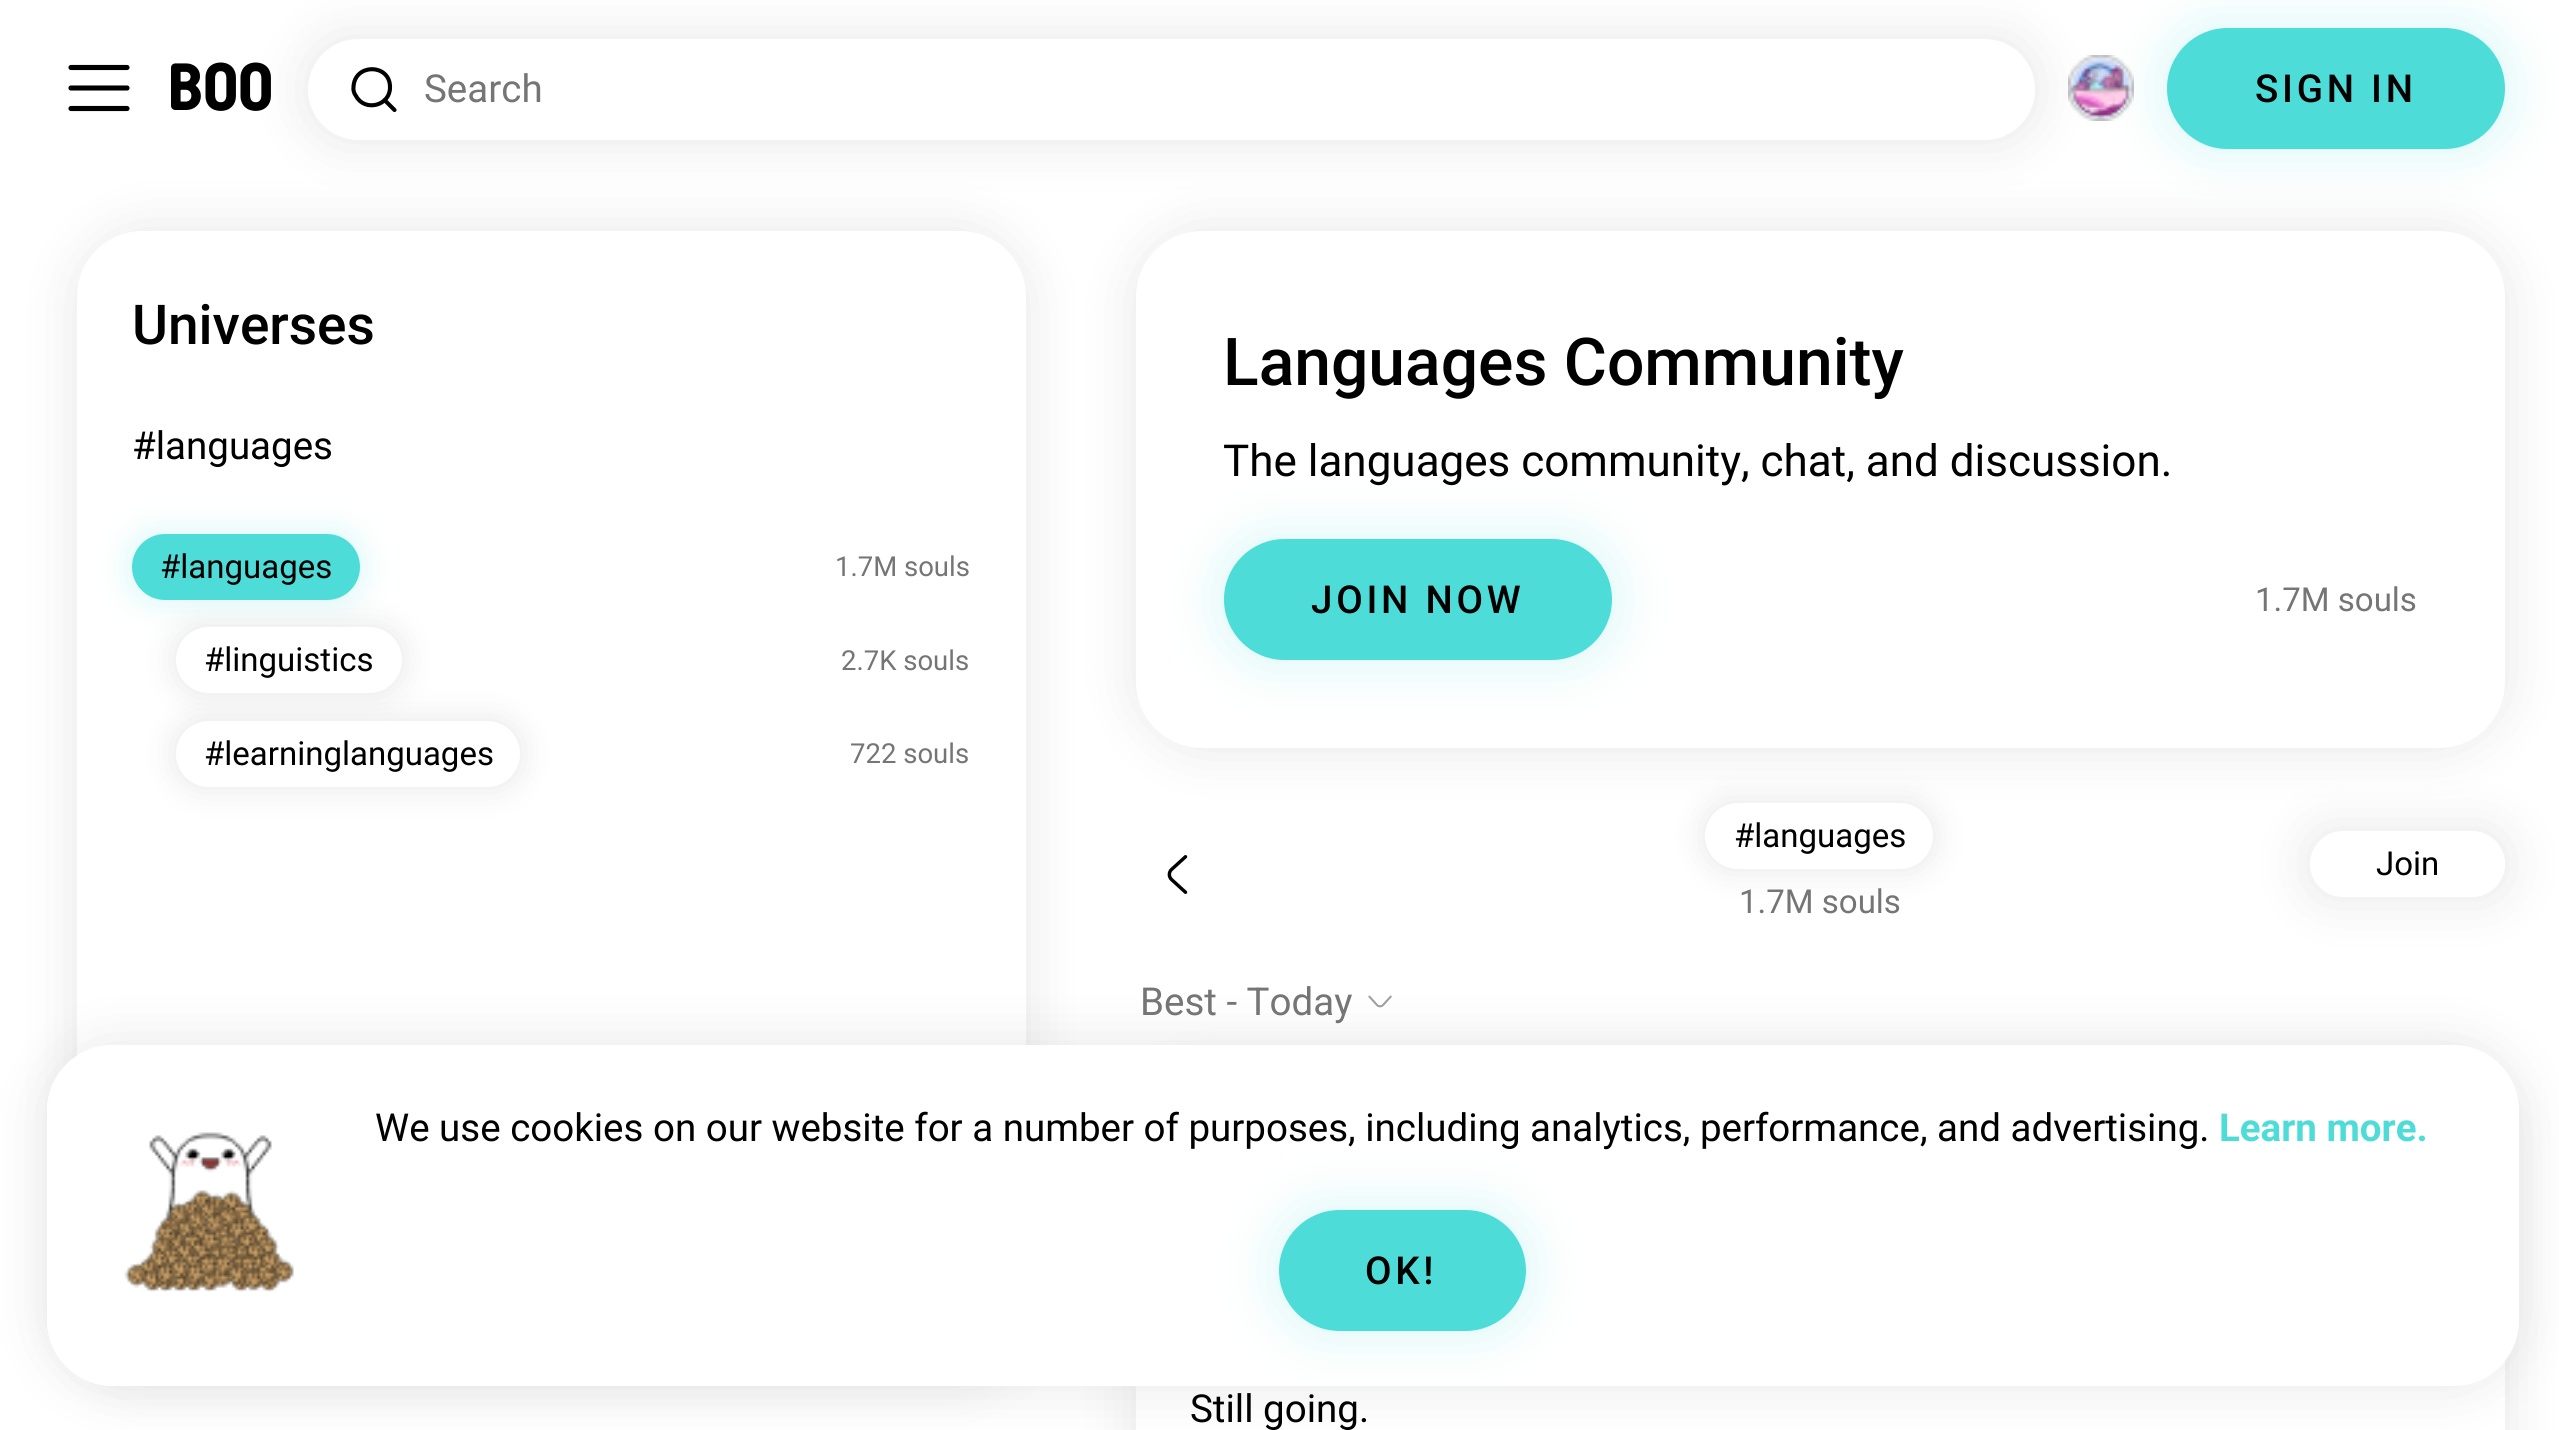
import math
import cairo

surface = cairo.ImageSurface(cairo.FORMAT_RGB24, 2559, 1430)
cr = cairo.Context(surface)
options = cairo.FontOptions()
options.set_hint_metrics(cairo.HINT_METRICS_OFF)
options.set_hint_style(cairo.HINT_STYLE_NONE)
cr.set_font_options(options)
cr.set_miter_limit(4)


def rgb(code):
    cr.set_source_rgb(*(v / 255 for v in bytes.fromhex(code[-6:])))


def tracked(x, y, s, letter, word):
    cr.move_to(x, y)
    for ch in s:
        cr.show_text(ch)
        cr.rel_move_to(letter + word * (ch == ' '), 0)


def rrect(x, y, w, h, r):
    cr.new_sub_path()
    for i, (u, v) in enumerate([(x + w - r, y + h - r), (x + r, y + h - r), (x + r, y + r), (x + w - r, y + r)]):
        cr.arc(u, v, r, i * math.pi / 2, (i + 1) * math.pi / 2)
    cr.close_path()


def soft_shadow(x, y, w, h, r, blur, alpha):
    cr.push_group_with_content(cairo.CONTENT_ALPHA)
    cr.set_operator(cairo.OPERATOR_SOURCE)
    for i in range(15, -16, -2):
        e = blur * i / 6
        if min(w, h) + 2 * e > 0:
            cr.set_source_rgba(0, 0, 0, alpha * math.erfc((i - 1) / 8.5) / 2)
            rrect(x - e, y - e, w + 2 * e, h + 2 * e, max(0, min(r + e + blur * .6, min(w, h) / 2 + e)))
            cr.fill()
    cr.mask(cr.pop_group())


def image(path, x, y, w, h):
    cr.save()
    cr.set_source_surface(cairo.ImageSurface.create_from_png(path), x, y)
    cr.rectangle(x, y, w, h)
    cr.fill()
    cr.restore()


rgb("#ffffff")
cr.paint()
cr.new_path()
cr.move_to(71, 67.5)
cr.line_to(127, 67.5)
cr.move_to(71, 88)
cr.line_to(127, 88)
cr.move_to(71, 108.5)
cr.line_to(127, 108.5)
rgb("#000000")
cr.set_line_width(5.1)
cr.set_line_cap(cairo.LINE_CAP_ROUND)
cr.stroke()
rgb("#9e9e9e")
soft_shadow(308, 39, 1727, 101, 50.5, 27.5, 0.25)
rgb("#ffffff")
rrect(308, 39, 1727, 101, 50.5)
cr.fill()
cr.new_path()
cr.move_to(394.5, 110)
cr.line_to(384.5, 100)
cr.move_to(390, 87)
cr.curve_to(390.5, 105.5, 365, 112.5, 356, 96)
cr.curve_to(354, 93.5, 353, 90, 353.5, 87)
cr.curve_to(354.5, 63, 390, 63.5, 390, 87)
cr.close_path()
rgb("#000000")
cr.set_line_width(4.1)
cr.set_line_join(cairo.LINE_JOIN_ROUND)
cr.stroke()
rgb("#9e9e9e")
soft_shadow(1136, 231, 1369, 517, 66, 27.5, 0.25)
rgb("#ffffff")
rrect(1136, 231, 1369, 517, 66)
cr.fill()
rgb("#4edcd8")
soft_shadow(2167, 28, 338, 121, 60.5, 27.5, 0.25)
image("img/1.png", 2068, 55, 66, 66)
rgb("#4edcd8")
rrect(2167, 28, 338, 121, 60.5)
cr.fill()
cr.save()
cr.set_fill_rule(cairo.FILL_RULE_EVEN_ODD)
cr.new_path()
cr.move_to(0, 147)
cr.line_to(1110, 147)
cr.line_to(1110, 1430)
cr.line_to(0, 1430)
cr.close_path()
cr.move_to(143, 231)
cr.line_to(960, 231)
cr.curve_to(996.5, 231, 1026, 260.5, 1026, 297)
cr.line_to(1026, 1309)
cr.curve_to(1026, 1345.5, 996.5, 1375, 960, 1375)
cr.line_to(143, 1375)
cr.curve_to(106.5, 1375, 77, 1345.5, 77, 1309)
cr.line_to(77, 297)
cr.curve_to(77, 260.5, 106.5, 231, 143, 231)
cr.close_path()
cr.clip()
rgb("#9e9e9e")
soft_shadow(77, 231, 949, 1144, 66, 27.5, 0.25)
cr.restore()
rgb("#4edcd8")
soft_shadow(132, 534, 228, 66, 33, 16.5, 0.25)
rgb("#4edcd8")
rrect(132, 534, 228, 66, 33)
cr.fill()
rgb("#9e9e9e")
soft_shadow(176, 627, 226, 66, 33, 16.5, 0.25)
rgb("#ffffff")
rrect(176, 627, 226, 66, 33)
cr.fill()
rgb("#9e9e9e")
soft_shadow(176, 721, 344, 66, 33, 16.5, 0.25)
rgb("#ffffff")
rrect(176, 721, 344, 66, 33)
cr.fill()
rgb("#4edcd8")
soft_shadow(1224, 539, 388, 121, 60.5, 27.5, 0.25)
rgb("#4edcd8")
rrect(1224, 539, 388, 121, 60.5)
cr.fill()
image("img/2.png", 1167, 855, 21, 39)
rgb("#9e9e9e")
soft_shadow(1705, 803, 228, 66, 33, 16.5, 0.25)
rgb("#ffffff")
rrect(1705, 803, 228, 66, 33)
cr.fill()
cr.save()
cr.set_fill_rule(cairo.FILL_RULE_EVEN_ODD)
cr.new_path()
cr.move_to(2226, 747)
cr.line_to(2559, 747)
cr.line_to(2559, 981)
cr.line_to(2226, 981)
cr.close_path()
cr.move_to(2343, 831)
cr.line_to(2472, 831)
cr.curve_to(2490, 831, 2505, 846, 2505, 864)
cr.curve_to(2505, 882, 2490, 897, 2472, 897)
cr.line_to(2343, 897)
cr.curve_to(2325, 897, 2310, 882, 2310, 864)
cr.curve_to(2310, 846, 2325, 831, 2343, 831)
cr.close_path()
cr.clip()
rgb("#9e9e9e")
soft_shadow(2310, 831, 195, 66, 33, 27.5, 0.25)
cr.restore()
rgb("#9e9e9e")
soft_shadow(1136, 1078, 1369, 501, 66, 27.5, 0.25)
image("img/3.png", 1368, 995, 24, 13)
rgb("#ffffff")
cr.rectangle(1136, 1360, 1369, 70)
cr.fill()
cr.save()
cr.set_fill_rule(cairo.FILL_RULE_EVEN_ODD)
cr.new_path()
cr.move_to(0, 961)
cr.line_to(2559, 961)
cr.line_to(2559, 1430)
cr.line_to(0, 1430)
cr.close_path()
cr.move_to(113, 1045)
cr.line_to(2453, 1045)
cr.curve_to(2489.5, 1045, 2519, 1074.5, 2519, 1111)
cr.line_to(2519, 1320)
cr.curve_to(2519, 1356.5, 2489.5, 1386, 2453, 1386)
cr.line_to(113, 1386)
cr.curve_to(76.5, 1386, 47, 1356.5, 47, 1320)
cr.line_to(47, 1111)
cr.curve_to(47, 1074.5, 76.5, 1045, 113, 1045)
cr.close_path()
cr.clip()
rgb("#9e9e9e")
soft_shadow(47, 1045, 2472, 341, 66, 27.5, 0.25)
cr.restore()
rrect(47, 1045, 2472, 341, 66)
cr.fill()
image("img/4.png", 124, 1132, 170, 161)
cr.save()
cr.set_fill_rule(cairo.FILL_RULE_EVEN_ODD)
cr.new_path()
cr.move_to(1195, 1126)
cr.line_to(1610, 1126)
cr.line_to(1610, 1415)
cr.line_to(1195, 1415)
cr.close_path()
cr.move_to(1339.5, 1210)
cr.line_to(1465.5, 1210)
cr.curve_to(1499, 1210, 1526, 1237, 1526, 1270.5)
cr.curve_to(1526, 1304, 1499, 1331, 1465.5, 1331)
cr.line_to(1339.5, 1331)
cr.curve_to(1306, 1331, 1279, 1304, 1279, 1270.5)
cr.curve_to(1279, 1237, 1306, 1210, 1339.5, 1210)
cr.close_path()
cr.clip()
rgb("#4edcd8")
soft_shadow(1279, 1210, 247, 121, 60.5, 27.5, 0.25)
cr.restore()
rgb("#4edcd8")
rrect(1279, 1210, 247, 121, 60.5)
cr.fill()
cr.select_font_face("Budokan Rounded", cairo.FONT_SLANT_NORMAL, cairo.FONT_WEIGHT_BOLD)
cr.set_font_size(66)
rgb("#000000")
cr.move_to(171, 110)
cr.show_text("Boo")
cr.select_font_face("Roboto")
cr.set_font_size(38.5)
rgb("#757575")
cr.move_to(424, 102)
cr.show_text("Search")
cr.select_font_face("Roboto Medium")
rgb("#000000")
tracked(2255, 102, "SIGN IN", 3.75, 0)
cr.set_font_size(55)
cr.move_to(132, 344)
cr.show_text("Universes")
cr.select_font_face("Roboto")
cr.set_font_size(38.5)
cr.move_to(132, 459)
cr.show_text("#languages")
cr.set_font_size(33)
cr.move_to(160, 578)
cr.show_text("#languages")
cr.set_font_size(27.5)
rgb("#757575")
cr.move_to(835, 576)
cr.show_text("1.7M souls")
cr.set_font_size(33)
rgb("#000000")
cr.move_to(204, 671)
cr.show_text("#linguistics")
cr.set_font_size(27.5)
rgb("#757575")
cr.move_to(841, 670)
cr.show_text("2.7K souls")
cr.set_font_size(33)
rgb("#000000")
cr.move_to(204, 765)
cr.show_text("#learninglanguages")
cr.set_font_size(27.5)
rgb("#757575")
cr.move_to(850, 763)
cr.show_text("722 souls")
cr.select_font_face("Roboto Medium")
cr.set_font_size(66)
rgb("#000000")
cr.move_to(1223, 385)
cr.show_text("Languages Community")
cr.select_font_face("Roboto")
cr.set_font_size(44)
cr.move_to(1223, 476)
cr.show_text("The languages community, chat, and discussion.")
cr.select_font_face("Roboto Medium")
cr.set_font_size(38.5)
tracked(1311, 613, "JOIN NOW", 3.75, 0)
cr.select_font_face("Roboto")
cr.set_font_size(33)
rgb("#757575")
cr.move_to(2255, 611)
cr.show_text("1.7M souls")
rgb("#000000")
cr.move_to(1734, 847)
cr.show_text("#languages")
rgb("#757575")
cr.move_to(1739, 913)
cr.show_text("1.7M souls")
rgb("#000000")
cr.move_to(2376, 875)
cr.show_text("Join")
cr.set_font_size(38.5)
rgb("#757575")
cr.move_to(1140, 1015)
cr.show_text("Best - Today")
rgb("#000000")
cr.move_to(1190, 1422)
cr.show_text("Still going.")
cr.move_to(375, 1141)
cr.show_text("We use cookies on our website for a number of purposes, including analytics, performance, and advertising.")
cr.select_font_face("Roboto", cairo.FONT_SLANT_NORMAL, cairo.FONT_WEIGHT_BOLD)
rgb("#4edcd8")
cr.move_to(2219, 1141)
cr.show_text("Learn more.")
cr.select_font_face("Roboto Medium")
rgb("#000000")
tracked(1365, 1284, "OK!", 3.75, 0)
surface.write_to_png("page.png")
